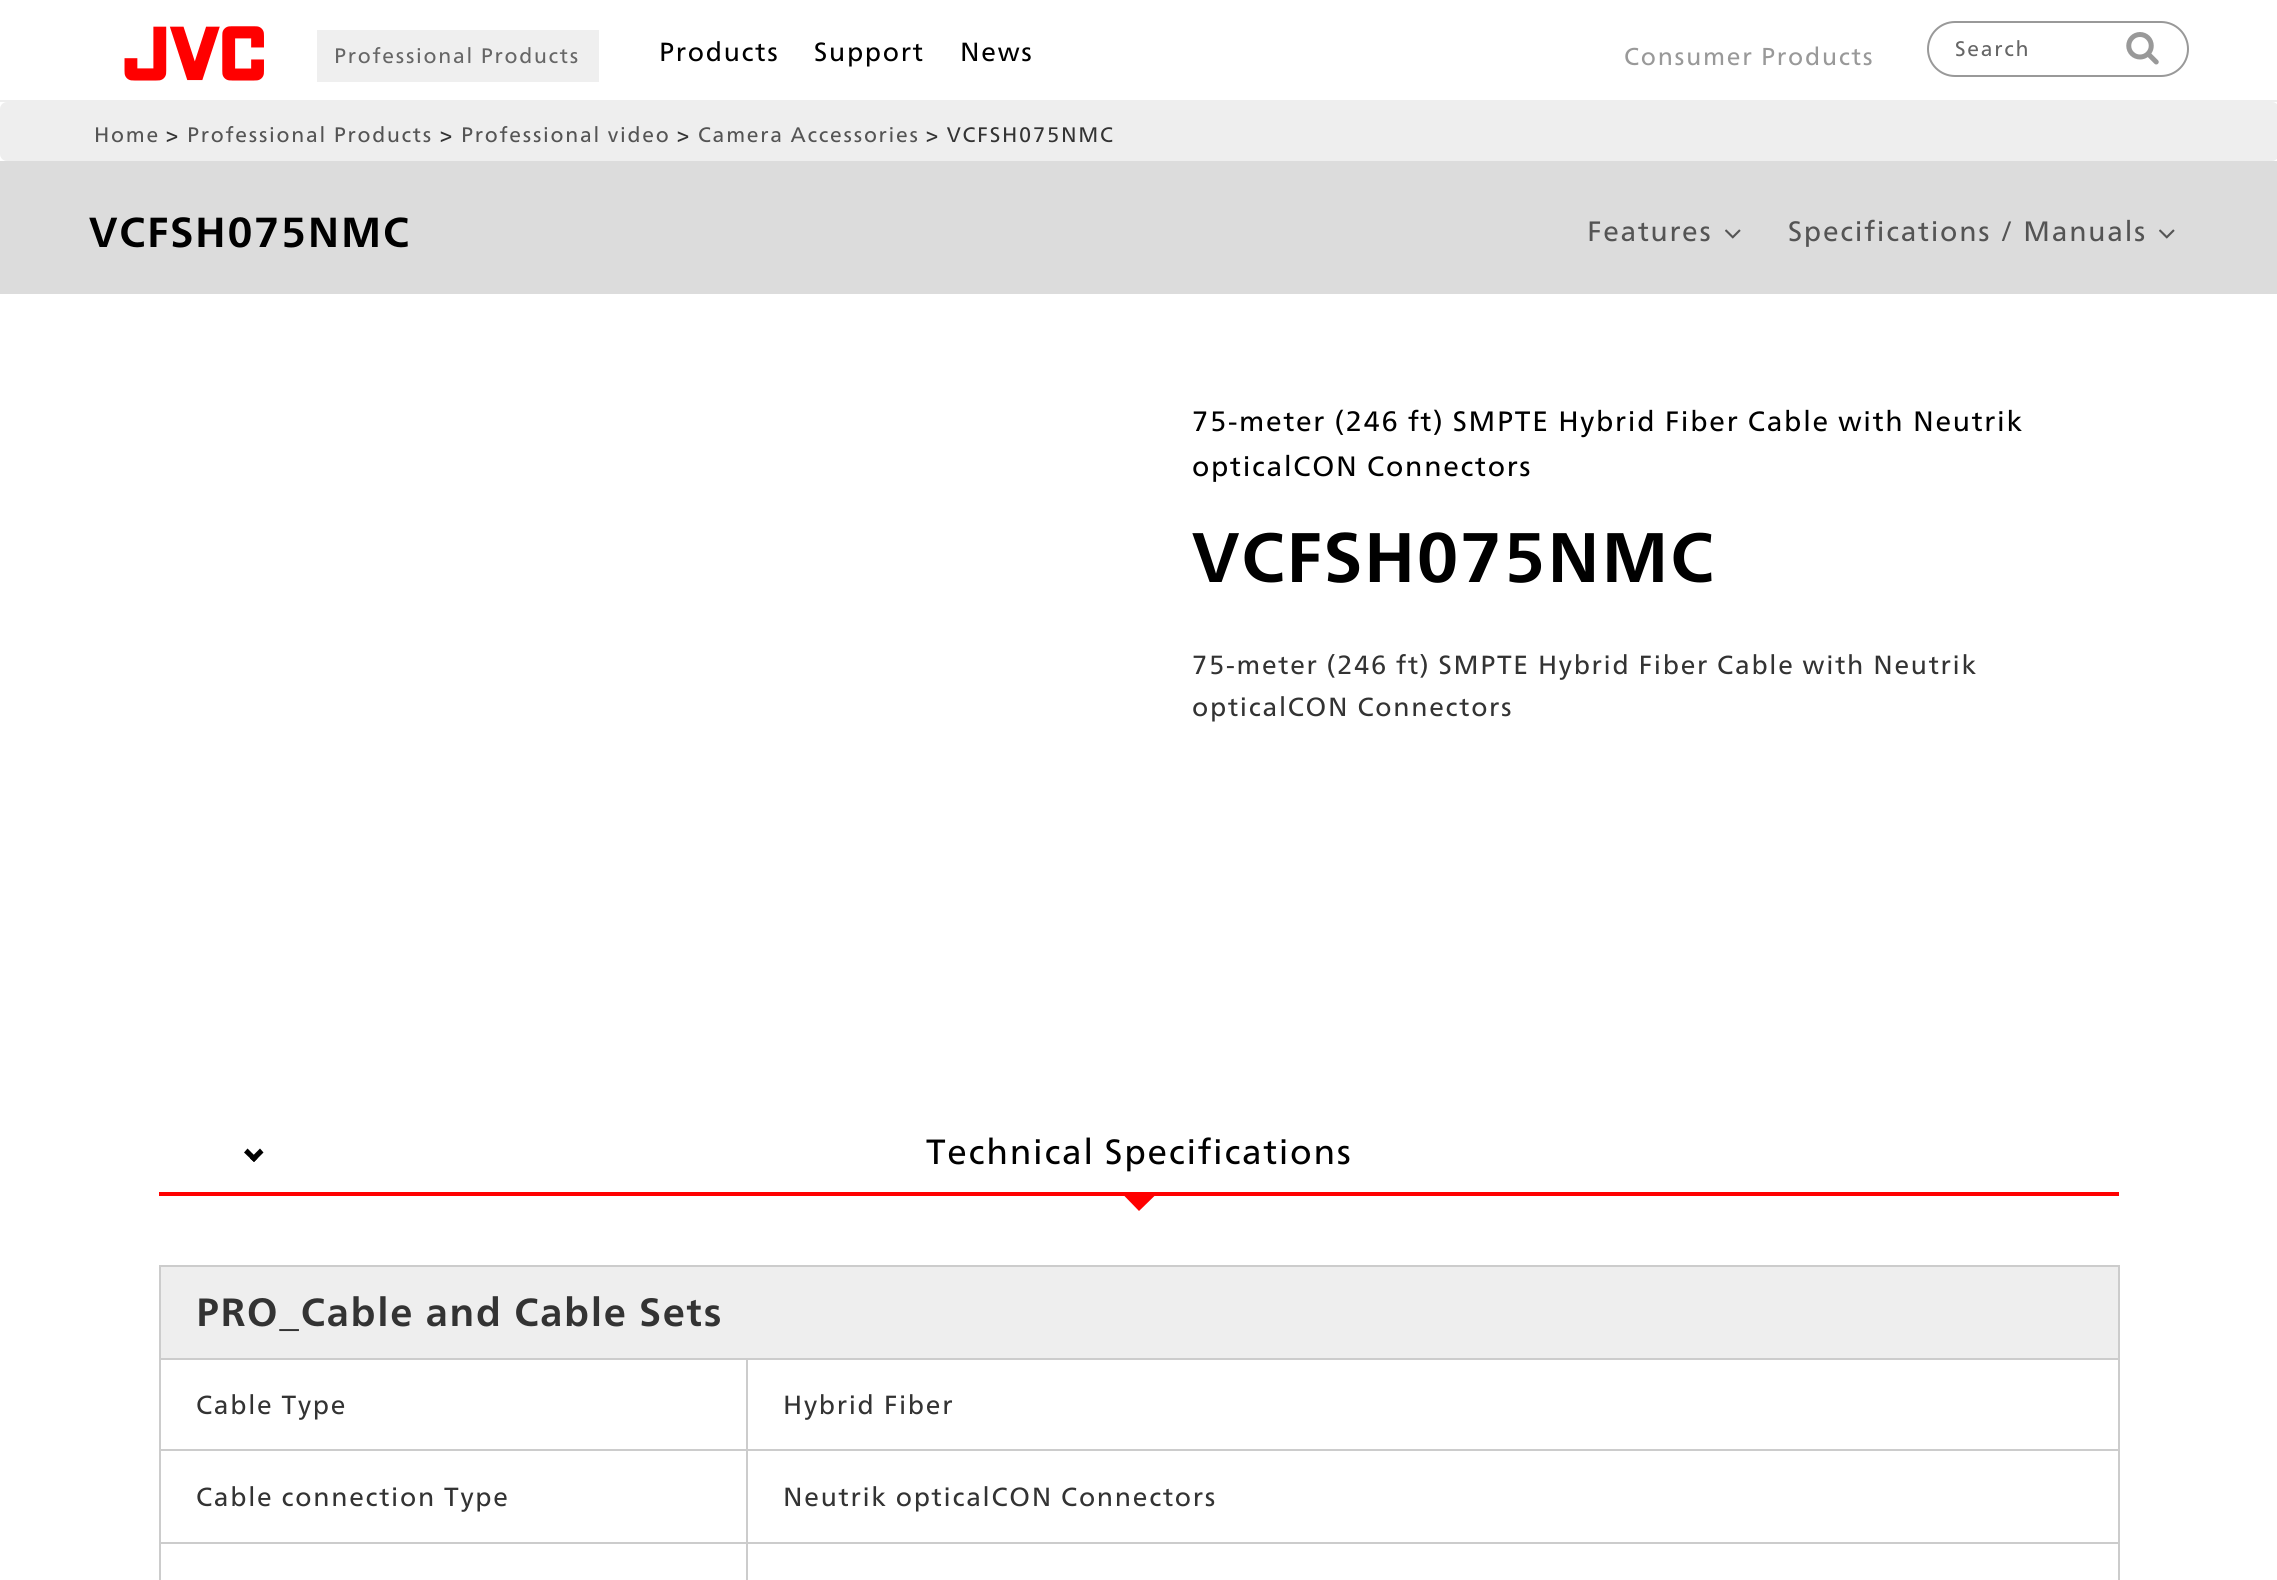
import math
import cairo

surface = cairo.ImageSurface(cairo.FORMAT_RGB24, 2277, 1580)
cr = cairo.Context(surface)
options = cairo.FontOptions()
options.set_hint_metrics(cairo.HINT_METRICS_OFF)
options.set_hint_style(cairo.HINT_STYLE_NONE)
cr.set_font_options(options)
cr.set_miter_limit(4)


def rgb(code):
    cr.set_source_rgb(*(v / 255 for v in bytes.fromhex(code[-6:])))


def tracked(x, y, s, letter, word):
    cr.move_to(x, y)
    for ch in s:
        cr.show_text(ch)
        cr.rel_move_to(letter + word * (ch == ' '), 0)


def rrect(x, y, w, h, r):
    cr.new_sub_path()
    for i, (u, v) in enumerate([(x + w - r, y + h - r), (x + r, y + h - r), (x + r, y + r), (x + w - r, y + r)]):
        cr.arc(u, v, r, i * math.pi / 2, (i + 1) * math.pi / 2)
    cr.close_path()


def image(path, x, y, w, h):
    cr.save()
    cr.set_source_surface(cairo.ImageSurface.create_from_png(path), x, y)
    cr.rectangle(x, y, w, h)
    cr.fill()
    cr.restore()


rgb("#ffffff")
cr.paint()
rgb("#eeeeee")
cr.rectangle(0, 100, 2277, 2)
cr.fill()
image("img/1.png", 124, 26, 140, 55)
rgb("#efefef")
cr.rectangle(317, 30, 282, 52)
cr.fill()
rrect(1928, 22, 260, 54, 27)
rgb("#999999")
cr.stroke()
image("img/2.png", 2126, 32, 33, 33)
rgb("#eeeeee")
rrect(0, 102, 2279, 59, 7)
cr.fill()
rgb("#dcdcdc")
cr.rectangle(0, 161, 2277, 133)
cr.fill()
image("img/3.png", 1725, 229, 16, 10)
image("img/3.png", 2159, 229, 16, 10)
rgb("#ff0000")
cr.rectangle(159, 1192, 1960, 4)
cr.fill()
rgb("#000000")
cr.new_path()
cr.move_to(263.5, 1152.5)
cr.line_to(254, 1162)
cr.line_to(250, 1158.5)
cr.line_to(260, 1148.5)
cr.close_path()
cr.fill()
cr.new_path()
cr.move_to(257.5, 1158.5)
cr.line_to(254, 1162)
cr.line_to(244, 1152.5)
cr.line_to(247.5, 1148.5)
cr.close_path()
cr.fill()
rgb("#ff0000")
cr.new_path()
cr.move_to(1122, 1193.5)
cr.line_to(1157, 1193.5)
cr.line_to(1139, 1211)
cr.close_path()
cr.fill()
for x, y, w, h, color in [
    (159, 1265, 1960, 2, "#cccccc"),
    (2118, 1265, 2, 315, "#cccccc"),
    (159, 1265, 2, 315, "#cccccc"),
    (161, 1267, 1957, 91, "#eeeeee"),
    (161, 1358, 1957, 2, "#cccccc"),
    (746, 1360, 2, 220, "#cccccc"),
    (161, 1449, 1957, 2, "#cccccc"),
    (161, 1542, 1957, 2, "#cccccc"),
]:
    rgb(color)
    cr.rectangle(x, y, w, h)
    cr.fill()
cr.select_font_face("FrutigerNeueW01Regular")
cr.set_font_size(21)
rgb("#666666")
tracked(334, 63, "Professional Products", 1.75, 0)
cr.set_font_size(26.25)
rgb("#000000")
for x, y, s in [
    (659, 61, "Products"),
    (814, 61, "Support"),
    (960, 61, "News"),
]:
    tracked(x, y, s, 1.75, 0)
cr.set_font_size(24.5)
rgb("#999999")
tracked(1624, 65, "Consumer Products", 1.75, 0)
cr.set_font_size(21)
rgb("#666666")
tracked(1955, 56, "Search", 1.75, 0)
rgb("#545454")
tracked(94, 142, "Home", 1.75, 0)
rgb("#333333")
tracked(166, 142, ">", 1.75, 0)
rgb("#545454")
tracked(187, 142, "Professional Products", 1.75, 0)
rgb("#333333")
tracked(440, 142, ">", 1.75, 0)
rgb("#545454")
tracked(461, 142, "Professional video", 1.75, 0)
rgb("#333333")
tracked(677, 142, ">", 1.75, 0)
rgb("#545454")
tracked(698, 142, "Camera Accessories", 1.75, 0)
rgb("#333333")
tracked(926, 142, "> VCFSH075NMC", 1.75, 0)
cr.select_font_face("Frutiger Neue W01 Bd", cairo.FONT_SLANT_NORMAL, cairo.FONT_WEIGHT_BOLD)
cr.set_font_size(42)
rgb("#000000")
tracked(89, 247, "VCFSH075NMC", 1.75, 0)
cr.select_font_face("FrutigerNeueW01Regular")
cr.set_font_size(28)
rgb("#545454")
tracked(1587, 241, "Features", 1.75, 0)
tracked(1788, 241, "Specifications / Manuals", 1.75, 0)
rgb("#000000")
tracked(1192, 431, "75-meter (246 ft) SMPTE Hybrid Fiber Cable with Neutrik", 1.75, 0)
tracked(1192, 476, "opticalCON Connectors", 1.75, 0)
cr.select_font_face("Frutiger Neue W01 Bd", cairo.FONT_SLANT_NORMAL, cairo.FONT_WEIGHT_BOLD)
cr.set_font_size(70)
tracked(1192, 582, "VCFSH075NMC", 1.75, 0)
cr.select_font_face("FrutigerNeueW01Regular")
cr.set_font_size(26.25)
rgb("#333333")
tracked(1192, 674, "75-meter (246 ft) SMPTE Hybrid Fiber Cable with Neutrik", 1.75, 0)
tracked(1192, 716, "opticalCON Connectors", 1.75, 0)
cr.set_font_size(35)
rgb("#000000")
tracked(926, 1164, "Technical Specifications", 1.75, 0)
cr.select_font_face("Frutiger Neue W01 Bd", cairo.FONT_SLANT_NORMAL, cairo.FONT_WEIGHT_BOLD)
cr.set_font_size(39.4)
rgb("#333333")
tracked(196, 1326, "PRO_Cable and Cable Sets", 1.75, 0)
cr.select_font_face("FrutigerNeueW01Regular")
cr.set_font_size(26.25)
for x, y, s in [
    (196, 1414, "Cable Type"),
    (783, 1414, "Hybrid Fiber"),
    (196, 1506, "Cable connection Type"),
    (783, 1506, "Neutrik opticalCON Connectors"),
]:
    tracked(x, y, s, 1.75, 0)
surface.write_to_png("page.png")
